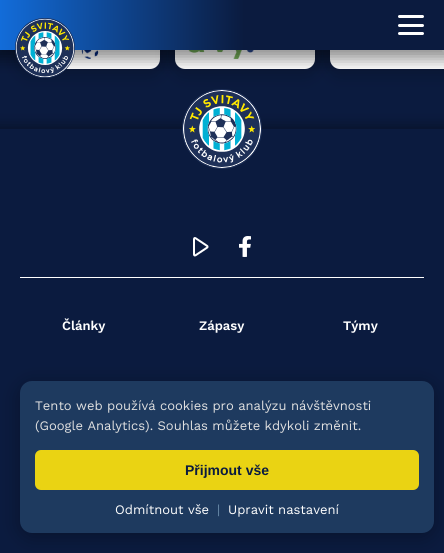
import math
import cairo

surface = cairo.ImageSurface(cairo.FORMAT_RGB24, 444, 553)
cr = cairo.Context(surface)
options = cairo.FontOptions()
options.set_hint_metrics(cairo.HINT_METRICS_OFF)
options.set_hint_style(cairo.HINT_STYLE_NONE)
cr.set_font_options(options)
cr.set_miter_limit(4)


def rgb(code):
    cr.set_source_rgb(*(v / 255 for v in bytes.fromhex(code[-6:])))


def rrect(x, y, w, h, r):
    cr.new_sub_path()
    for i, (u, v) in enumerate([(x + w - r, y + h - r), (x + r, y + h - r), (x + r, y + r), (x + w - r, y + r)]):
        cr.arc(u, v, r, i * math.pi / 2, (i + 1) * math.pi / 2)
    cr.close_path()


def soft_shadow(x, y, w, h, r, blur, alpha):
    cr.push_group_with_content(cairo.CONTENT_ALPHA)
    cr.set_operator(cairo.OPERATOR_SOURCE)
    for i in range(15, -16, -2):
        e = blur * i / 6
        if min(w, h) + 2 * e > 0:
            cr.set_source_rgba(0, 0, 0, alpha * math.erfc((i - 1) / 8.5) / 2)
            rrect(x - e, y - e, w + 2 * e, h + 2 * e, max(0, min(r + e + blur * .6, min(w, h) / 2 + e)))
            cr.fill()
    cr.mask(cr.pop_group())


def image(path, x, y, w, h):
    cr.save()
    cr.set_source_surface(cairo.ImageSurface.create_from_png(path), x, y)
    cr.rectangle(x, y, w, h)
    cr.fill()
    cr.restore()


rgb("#ffffff")
cr.paint()
gradient = cairo.LinearGradient(222, 0, 222, 553)
gradient.add_color_stop_rgba(0.45, 0.043, 0.106, 0.247, 1)
gradient.add_color_stop_rgba(1, 0.071, 0.424, 0.851, 1)
cr.set_source(gradient)
cr.rectangle(0, 50, 444, 79)
cr.fill()
rgb("#000000")
soft_shadow(15, -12, 150, 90, 15, 8, 0.15)
rgb("#ffffff")
rrect(20, -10, 140, 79, 10)
cr.fill()
image("img/1.png", 72, 50, 39, 9)
rgb("#000000")
soft_shadow(170, -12, 150, 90, 15, 8, 0.15)
rgb("#ffffff")
rrect(175, -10, 140, 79, 10)
cr.fill()
image("img/2.png", 188, 50, 66, 9)
rgb("#000000")
soft_shadow(325, -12, 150, 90, 15, 8, 0.15)
rgb("#ffffff")
cr.new_path()
cr.move_to(340, -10)
cr.line_to(444, -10)
cr.line_to(444, 69)
cr.line_to(340, 69)
cr.curve_to(334.5, 69, 330, 64.5, 330, 59)
cr.line_to(330, 0)
cr.curve_to(330, -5.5, 334.5, -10, 340, -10)
cr.close_path()
cr.fill()
rgb("#000000")
soft_shadow(-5, -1, 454, 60, 0, 8, 0.45)
gradient = cairo.LinearGradient(444, 25, 0, 25)
gradient.add_color_stop_rgba(0.45, 0.043, 0.106, 0.247, 1)
gradient.add_color_stop_rgba(1, 0.071, 0.424, 0.851, 1)
cr.set_source(gradient)
cr.rectangle(0, 0, 444, 50)
cr.fill()
image("img/3.png", 15, 18, 60, 60)
rgb("#ffffff")
rrect(398, 15, 26, 3, 1.5)
cr.fill()
rrect(398, 24, 26, 3, 1.5)
cr.fill()
rrect(398, 32, 26, 3, 1.5)
cr.fill()
rgb("#000000")
soft_shadow(-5, 128, 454, 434, 0, 8, 0.45)
rgb("#0b1b3f")
cr.rectangle(0, 129, 444, 424)
cr.fill()
image("img/4.png", 182, 89, 80, 80)
rgb("#ffffff")
cr.rectangle(20, 277, 404, 1)
cr.fill()
image("img/5.png", 193, 237, 16, 20)
image("img/6.png", 239, 236, 12, 21)
rgb("#000000")
soft_shadow(20, 385, 414, 152, 12, 10, 0.3)
rgb("#1e3a5f")
rrect(20, 381, 414, 152, 12)
cr.fill()
rgb("#ead313")
rrect(35, 450, 384, 40, 6)
cr.fill()
cr.select_font_face("Work Sans SemiBold")
cr.set_font_size(13)
rgb("#ffffff")
for x, y, s in [
    (62, 330, "Články"),
    (199, 330, "Zápasy"),
    (343, 330, "Týmy"),
]:
    cr.move_to(x, y)
    cr.show_text(s)
cr.select_font_face("Work Sans")
rgb("#e0e0e0")
cr.move_to(35, 410)
cr.show_text("Tento web používá cookies pro analýzu návštěvnosti")
cr.move_to(35, 430)
cr.show_text("(Google Analytics). Souhlas můžete kdykoli změnit.")
cr.select_font_face("Liberation Sans", cairo.FONT_SLANT_NORMAL, cairo.FONT_WEIGHT_BOLD)
cr.set_font_size(14)
rgb("#0b1b3f")
cr.move_to(185, 475)
cr.show_text("Přijmout vše")
cr.select_font_face("Work Sans")
cr.set_font_size(13)
rgb("#ffffff")
cr.move_to(115, 514)
cr.show_text("Odmítnout vše")
rgb("#6a8caa")
cr.move_to(217, 514)
cr.show_text("|")
rgb("#ffffff")
cr.move_to(228, 514)
cr.show_text("Upravit nastavení")
surface.write_to_png("page.png")
